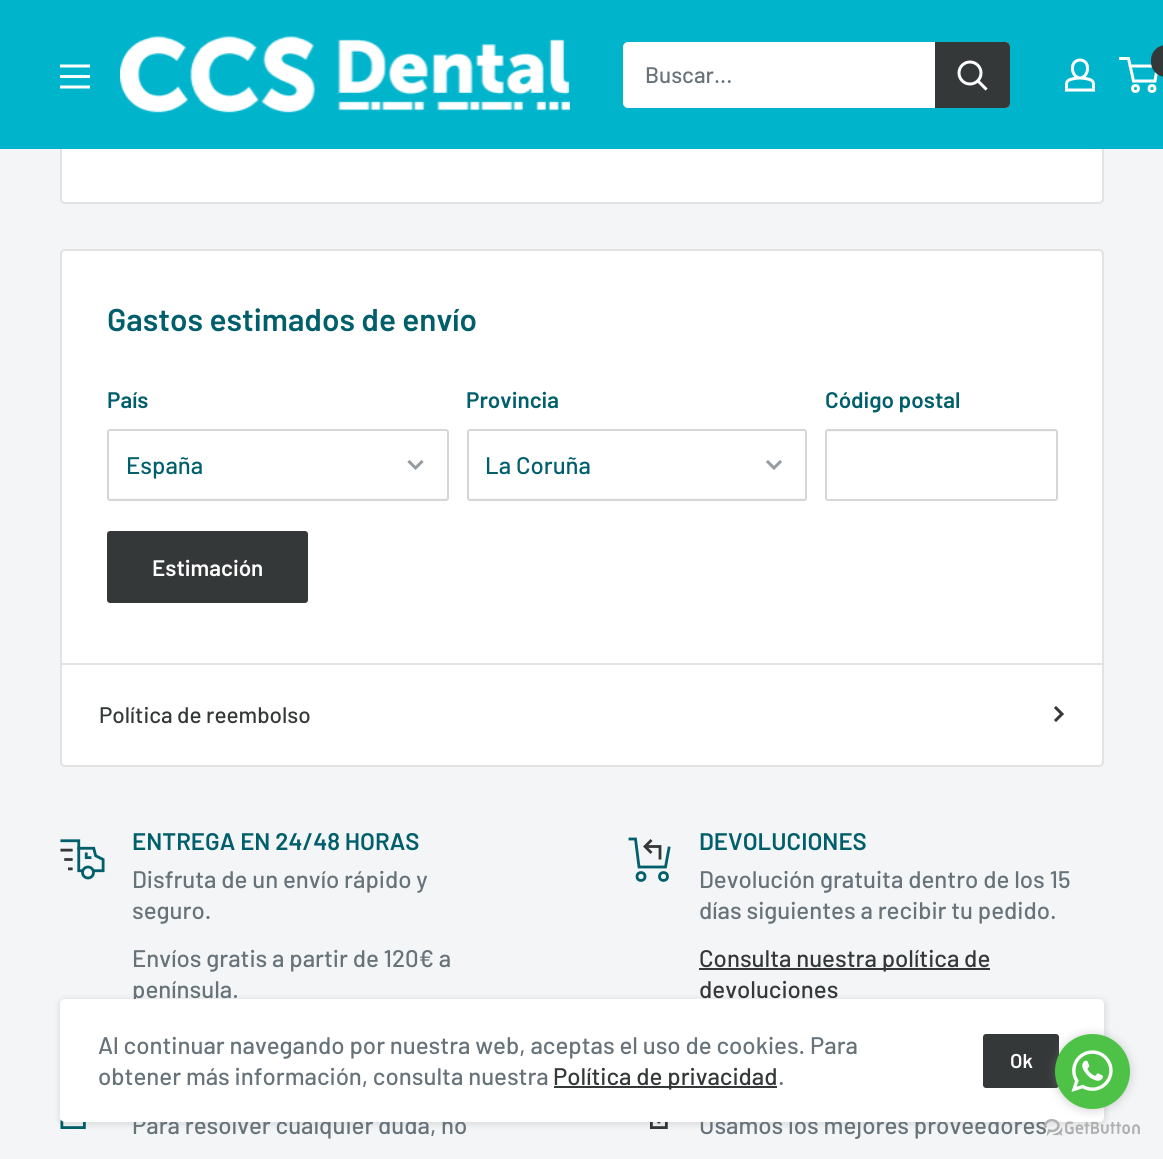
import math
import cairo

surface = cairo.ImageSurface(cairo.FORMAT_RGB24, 1163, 1159)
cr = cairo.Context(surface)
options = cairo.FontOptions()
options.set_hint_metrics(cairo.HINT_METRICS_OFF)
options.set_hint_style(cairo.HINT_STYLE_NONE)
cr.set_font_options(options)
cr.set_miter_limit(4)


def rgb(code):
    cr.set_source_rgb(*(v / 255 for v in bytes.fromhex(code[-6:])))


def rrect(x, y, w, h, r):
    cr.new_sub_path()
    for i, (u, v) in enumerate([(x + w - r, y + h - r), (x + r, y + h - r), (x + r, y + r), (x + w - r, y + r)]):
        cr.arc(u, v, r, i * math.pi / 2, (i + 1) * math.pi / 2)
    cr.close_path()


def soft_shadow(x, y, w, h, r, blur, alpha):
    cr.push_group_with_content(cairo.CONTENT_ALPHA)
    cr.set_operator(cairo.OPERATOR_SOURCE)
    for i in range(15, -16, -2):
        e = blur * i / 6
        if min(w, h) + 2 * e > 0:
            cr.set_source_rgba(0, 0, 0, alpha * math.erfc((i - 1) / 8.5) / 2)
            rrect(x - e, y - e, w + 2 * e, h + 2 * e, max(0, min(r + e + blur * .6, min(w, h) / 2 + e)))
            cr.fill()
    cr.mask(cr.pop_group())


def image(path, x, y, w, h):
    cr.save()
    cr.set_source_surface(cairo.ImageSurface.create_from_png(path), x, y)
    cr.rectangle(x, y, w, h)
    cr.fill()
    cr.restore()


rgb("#f3f5f6")
cr.paint()
rgb("#ffffff")
rrect(61, -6, 1042, 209, 4)
cr.fill_preserve()
rgb("#e1e3e4")
cr.stroke()
rgb("#00b4cc")
cr.rectangle(0, 0, 1163, 149)
cr.fill()
image("img/1.png", 60, 64, 30, 25)
image("img/2.png", 120, 36, 450, 77)
rgb("#ffffff")
rrect(623, 42, 387, 66, 5)
cr.fill()
rgb("#343838")
cr.new_path()
cr.move_to(935, 42)
cr.line_to(1005, 42)
cr.curve_to(1008, 42, 1010, 44, 1010, 47)
cr.line_to(1010, 103)
cr.curve_to(1010, 106, 1008, 108, 1005, 108)
cr.line_to(935, 108)
cr.close_path()
cr.fill()
cr.new_path()
cr.move_to(985.5, 88.5)
cr.line_to(978, 81)
rgb("#ffffff")
cr.set_line_width(3)
cr.set_line_cap(cairo.LINE_CAP_SQUARE)
cr.stroke()
cr.arc(970, 73, 11, 0, 2 * math.pi)
cr.set_line_cap(cairo.LINE_CAP_BUTT)
cr.stroke()
image("img/3.png", 1065, 58, 30, 34)
cr.arc(1135.5, 88.5, 3, 0, 2 * math.pi)
cr.stroke()
cr.arc(1152, 88.5, 3, 0, 2 * math.pi)
cr.stroke()
cr.new_path()
cr.move_to(1130, 66)
cr.line_to(1157.5, 66)
cr.line_to(1155, 81)
cr.line_to(1133.5, 81)
cr.line_to(1128.5, 58.5)
cr.line_to(1119, 58.5)
cr.stroke()
rgb("#343838")
rrect(1151, 45, 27, 32, 15)
cr.fill()
rgb("#ffffff")
rrect(61, 250, 1042, 516, 4)
cr.fill_preserve()
rgb("#e1e3e4")
cr.set_line_width(2)
cr.stroke()
rgb("#f6f7f7")
cr.new_path()
cr.move_to(108, 496)
cr.line_to(108, 498)
cr.curve_to(108, 499, 109, 500, 110, 500)
cr.line_to(446, 500)
cr.curve_to(446, 500, 447, 499, 447, 498)
cr.line_to(447, 496)
cr.line_to(446, 498)
cr.line_to(110, 498)
cr.curve_to(109, 498, 108, 497, 108, 496)
cr.close_path()
cr.fill()
rrect(108, 430, 340, 70, 2)
rgb("#d4d6d8")
cr.stroke()
cr.new_path()
cr.move_to(421.5, 462)
cr.line_to(415.5, 468)
cr.line_to(409.5, 462)
rgb("#959ca1")
cr.set_line_width(3)
cr.set_line_cap(cairo.LINE_CAP_SQUARE)
cr.stroke()
rgb("#f6f7f7")
cr.new_path()
cr.move_to(468, 496)
cr.line_to(468, 498)
cr.curve_to(468, 499, 469, 500, 470, 500)
cr.line_to(804, 500)
cr.curve_to(805, 500, 806, 499, 806, 498)
cr.line_to(806, 496)
cr.curve_to(806, 497, 805, 498, 804, 498)
cr.line_to(470, 498)
cr.curve_to(469, 498, 468, 497, 468, 496)
cr.close_path()
cr.fill()
rrect(468, 430, 338, 70, 2)
rgb("#d4d6d8")
cr.set_line_width(2)
cr.set_line_cap(cairo.LINE_CAP_BUTT)
cr.stroke()
cr.new_path()
cr.move_to(780, 462)
cr.line_to(774, 468)
cr.line_to(768, 462)
rgb("#959ca1")
cr.set_line_width(3)
cr.set_line_cap(cairo.LINE_CAP_SQUARE)
cr.stroke()
rgb("#f8f8f8")
cr.new_path()
cr.move_to(828, 432)
cr.line_to(1054, 432)
cr.curve_to(1055, 432, 1056, 433, 1056, 434)
cr.line_to(1056, 432)
cr.curve_to(1056, 432, 1055, 431, 1054, 431)
cr.line_to(828, 431)
cr.curve_to(828, 431, 827, 432, 827, 432)
cr.close_path()
cr.fill()
rrect(826, 430, 231, 70, 2)
rgb("#d4d6d8")
cr.set_line_width(2)
cr.set_line_cap(cairo.LINE_CAP_BUTT)
cr.stroke()
rgb("#343838")
rrect(107, 531, 201, 72, 3)
cr.fill()
rgb("#e1e3e4")
cr.rectangle(62, 663, 1041, 2)
cr.fill()
cr.new_path()
cr.move_to(1056, 708)
cr.line_to(1062, 714)
cr.line_to(1056, 720)
rgb("#343838")
cr.set_line_width(3)
cr.set_line_cap(cairo.LINE_CAP_SQUARE)
cr.stroke()
image("img/4.png", 60, 839, 45, 41)
cr.new_path()
cr.move_to(645, 846.5)
cr.line_to(660, 846.5)
cr.line_to(660, 859.5)
cr.set_line_width(2.8)
cr.set_line_cap(cairo.LINE_CAP_BUTT)
cr.stroke()
cr.new_path()
cr.move_to(650.5, 852)
cr.line_to(645, 846.5)
cr.line_to(650.5, 841)
cr.set_line_cap(cairo.LINE_CAP_SQUARE)
cr.stroke()
cr.new_path()
cr.move_to(669, 848)
cr.line_to(665.5, 867)
cr.line_to(639, 867)
cr.line_to(635.5, 839)
cr.line_to(630, 839)
rgb("#005f6b")
cr.stroke()
cr.arc(641, 876.5, 4, 0, 2 * math.pi)
cr.set_line_cap(cairo.LINE_CAP_BUTT)
cr.stroke()
cr.arc(663.5, 876.5, 4, 0, 2 * math.pi)
cr.stroke()
rgb("#343838")
cr.rectangle(699, 968, 291, 2)
cr.fill()
image("img/5.png", 60, 1119, 26, 10)
image("img/6.png", 649, 1122, 19, 7)
rgb("#000000")
soft_shadow(59, 999, 1047, 126, 6, 3, 0.1)
cr.select_font_face("Barlow Medium")
cr.set_font_size(22.5)
rgb("#677279")
cr.move_to(645, 83)
cr.show_text("Buscar...")
cr.select_font_face("Barlow SemiBold")
cr.set_font_size(31.5)
rgb("#005f6b")
cr.move_to(107, 331)
cr.show_text("Gastos estimados de envío")
cr.set_font_size(22.5)
cr.move_to(107, 408)
cr.show_text("País")
cr.select_font_face("Barlow Medium")
cr.set_font_size(24)
cr.move_to(126, 474)
cr.show_text("España")
cr.select_font_face("Barlow SemiBold")
cr.set_font_size(22.5)
cr.move_to(466, 408)
cr.show_text("Provincia")
cr.select_font_face("Barlow Medium")
cr.set_font_size(24)
cr.move_to(485, 474)
cr.show_text("La Coruña")
cr.select_font_face("Barlow SemiBold")
cr.set_font_size(22.5)
cr.move_to(825, 408)
cr.show_text("Código postal")
rgb("#ffffff")
cr.move_to(152, 576)
cr.show_text("Estimación")
cr.select_font_face("Barlow Medium")
rgb("#343838")
cr.move_to(99, 723)
cr.show_text("Política de reembolso")
cr.select_font_face("Barlow SemiBold")
cr.set_font_size(24)
rgb("#005f6b")
cr.move_to(132, 850)
cr.show_text("ENTREGA EN 24/48 HORAS")
cr.select_font_face("Barlow Medium")
rgb("#677279")
for x, y, s in [
    (132, 888, "Disfruta de un envío rápido y"),
    (132, 919, "seguro."),
    (132, 967, "Envíos gratis a partir de 120€ a"),
    (132, 998, "península."),
]:
    cr.move_to(x, y)
    cr.show_text(s)
cr.select_font_face("Barlow SemiBold")
rgb("#005f6b")
cr.move_to(699, 850)
cr.show_text("DEVOLUCIONES")
cr.select_font_face("Barlow Medium")
rgb("#677279")
cr.move_to(699, 888)
cr.show_text("Devolución gratuita dentro de los 15")
cr.move_to(699, 919)
cr.show_text("días siguientes a recibir tu pedido.")
rgb("#343838")
cr.move_to(699, 967)
cr.show_text("Consulta nuestra política de")
cr.move_to(699, 998)
cr.show_text("devoluciones")
rgb("#677279")
cr.move_to(132, 1134)
cr.show_text("Para resolver cualquier duda, no")
cr.move_to(699, 1134)
cr.show_text("Usamos los mejores proveedores")
rgb("#ffffff")
rrect(60, 999, 1044, 123, 5)
cr.fill()
image("img/8.png", 1044, 1119, 96, 17)
rgb("#677279")
cr.move_to(98, 1054)
cr.show_text("Al continuar navegando por nuestra web, aceptas el uso de cookies. Para")
cr.move_to(98, 1085)
cr.show_text("obtener más información, consulta nuestra")
rgb("#343838")
cr.rectangle(554, 1086, 223, 2)
cr.fill()
cr.move_to(553, 1085)
cr.show_text("Política de privacidad")
rgb("#677279")
cr.move_to(778, 1085)
cr.show_text(".")
rgb("#343838")
rrect(983, 1034, 76, 54, 3)
cr.fill()
rgb("#888888")
soft_shadow(1055, 1035, 75, 75, 37.5, 5, 0.4)
rgb("#4dc247")
cr.arc(1092.5, 1071.5, 37.5, 0, 2 * math.pi)
cr.fill()
image("img/7.png", 1071, 1050, 42, 42)
cr.select_font_face("Barlow SemiBold")
cr.set_font_size(20)
rgb("#ffffff")
cr.move_to(1010, 1068)
cr.show_text("Ok")
surface.write_to_png("page.png")
